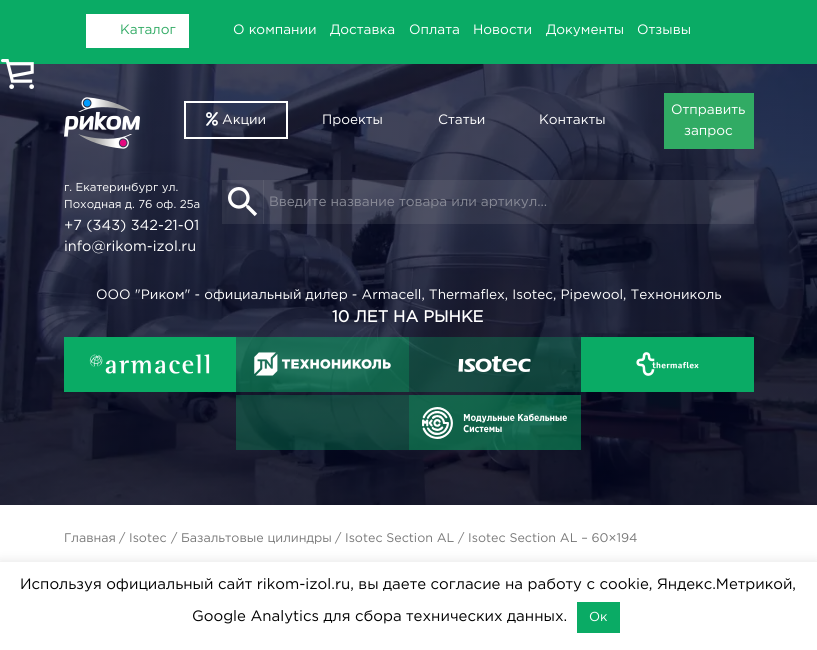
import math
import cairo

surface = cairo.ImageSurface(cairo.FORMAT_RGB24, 817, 650)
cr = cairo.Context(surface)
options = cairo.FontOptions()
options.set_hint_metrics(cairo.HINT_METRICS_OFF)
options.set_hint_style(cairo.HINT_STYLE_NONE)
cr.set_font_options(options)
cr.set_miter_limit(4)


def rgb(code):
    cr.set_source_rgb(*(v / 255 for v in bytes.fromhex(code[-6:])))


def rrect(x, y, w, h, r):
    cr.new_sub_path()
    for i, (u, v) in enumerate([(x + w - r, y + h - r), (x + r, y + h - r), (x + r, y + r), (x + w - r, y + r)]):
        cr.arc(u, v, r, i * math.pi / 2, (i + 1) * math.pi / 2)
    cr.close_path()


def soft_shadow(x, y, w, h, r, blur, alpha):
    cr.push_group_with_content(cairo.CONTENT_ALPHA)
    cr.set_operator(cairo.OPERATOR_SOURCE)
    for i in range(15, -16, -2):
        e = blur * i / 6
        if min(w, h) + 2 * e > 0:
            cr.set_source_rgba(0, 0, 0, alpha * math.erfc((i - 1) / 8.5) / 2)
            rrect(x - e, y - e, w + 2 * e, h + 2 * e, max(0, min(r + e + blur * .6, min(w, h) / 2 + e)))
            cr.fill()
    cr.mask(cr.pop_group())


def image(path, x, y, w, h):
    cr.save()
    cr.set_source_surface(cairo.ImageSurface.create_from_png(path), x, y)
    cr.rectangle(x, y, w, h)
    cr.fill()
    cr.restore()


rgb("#ffffff")
cr.paint()
rgb("#0aab65")
cr.rectangle(0, 0, 817, 64)
cr.fill()
rgb("#ffffff")
cr.rectangle(86, 14, 103, 34)
cr.fill()
image("img/2.png", 0, 64, 817, 441)
image("img/1.png", 1, 59, 33, 30)
image("img/3.png", 64, 97, 76, 52)
cr.rectangle(185, 102, 102, 36)
cr.stroke()
image("img/4.png", 206, 112, 12, 14)
rgb("#31ab64")
cr.rectangle(664, 93, 90, 56)
cr.fill()
cr.set_source_rgba(0.784, 0.784, 0.784, 0.1)
cr.rectangle(222, 180, 42, 44)
cr.fill()
image("img/5.png", 228, 187, 30, 30)
cr.rectangle(263, 180, 491, 44)
cr.fill()
rgb("#0aab65")
cr.rectangle(64, 337, 172, 55)
cr.fill()
image("img/6.png", 89, 354, 121, 20)
cr.set_source_rgba(0.039, 0.671, 0.396, 0.5)
cr.rectangle(236, 337, 173, 55)
cr.fill()
image("img/7.png", 254, 352, 137, 24)
cr.set_source_rgba(0.039, 0.671, 0.396, 0.3)
cr.rectangle(409, 337, 172, 55)
cr.fill()
image("img/8.png", 458, 356, 73, 17)
rgb("#0aab65")
cr.rectangle(581, 337, 173, 55)
cr.fill()
image("img/9.png", 636, 352, 63, 24)
cr.set_source_rgba(0.039, 0.671, 0.396, 0.3)
cr.rectangle(236, 395, 173, 55)
cr.fill()
cr.set_source_rgba(0.039, 0.671, 0.396, 0.5)
cr.rectangle(409, 395, 172, 55)
cr.fill()
image("img/10.png", 422, 407, 145, 32)
rgb("#acabab")
soft_shadow(0, 561, 817, 88, 0, 5, 0.3)
rgb("#ffffff")
cr.rectangle(0, 562, 817, 88)
cr.fill()
rgb("#0aab65")
cr.rectangle(577, 602, 43, 31)
cr.fill()
cr.select_font_face("Gotham")
cr.set_font_size(13.6)
rgb("#32ab65")
cr.move_to(120, 34)
cr.show_text("Каталог")
rgb("#ffffff")
for x, y, s in [
    (233, 34, "О компании"),
    (330, 34, "Доставка"),
    (409, 34, "Оплата"),
    (473, 34, "Новости"),
    (546, 34, "Документы"),
    (637, 34, "Отзывы"),
    (222, 124, "Акции"),
    (322, 124, "Проекты"),
    (438, 124, "Статьи"),
    (539, 124, "Контакты"),
    (671, 114, "Отправить"),
    (684, 135, "запрос"),
]:
    cr.move_to(x, y)
    cr.show_text(s)
cr.set_font_size(11.5)
cr.move_to(64, 191)
cr.show_text("г. Екатеринбург ул.")
cr.move_to(64, 208)
cr.show_text("Походная д. 76 оф. 25а")
cr.set_font_size(14.5)
cr.move_to(64, 230)
cr.show_text("+7 (343) 342-21-01")
cr.move_to(64, 251)
cr.show_text("info@rikom-izol.ru")
cr.set_font_size(13.6)
rgb("#888a96")
cr.move_to(269, 206)
cr.show_text("Введите название товара или артикул...")
rgb("#ffffff")
cr.move_to(96, 299)
cr.show_text("ООО \"Риком\" - официальный дилер - Armacell, Thermaflex, Isotec, Pipewool, Технониколь")
cr.select_font_face("Gotham", cairo.FONT_SLANT_NORMAL, cairo.FONT_WEIGHT_BOLD)
cr.set_font_size(16.25)
cr.move_to(332, 322)
cr.show_text("10 ЛЕТ НА РЫНКЕ")
cr.select_font_face("Gotham")
cr.set_font_size(12.5)
rgb("#777777")
for x, y, s in [
    (64, 542, "Главная"),
    (119, 542, "/"),
    (129, 542, "Isotec"),
    (171, 542, "/"),
    (181, 542, "Базальтовые цилиндры"),
    (335, 542, "/"),
    (345, 542, "Isotec Section AL"),
    (458, 542, "/ Isotec Section AL – 60×194"),
]:
    cr.move_to(x, y)
    cr.show_text(s)
cr.set_font_size(15)
rgb("#000000")
cr.move_to(20, 589)
cr.show_text("Используя официальный сайт rikom-izol.ru, вы даете согласие на работу с cookie, Яндекс.Метрикой,")
cr.move_to(192, 621)
cr.show_text("Google Analytics для сбора технических данных.")
cr.set_font_size(13)
rgb("#ffffff")
cr.move_to(589, 621)
cr.show_text("Ок")
surface.write_to_png("page.png")
